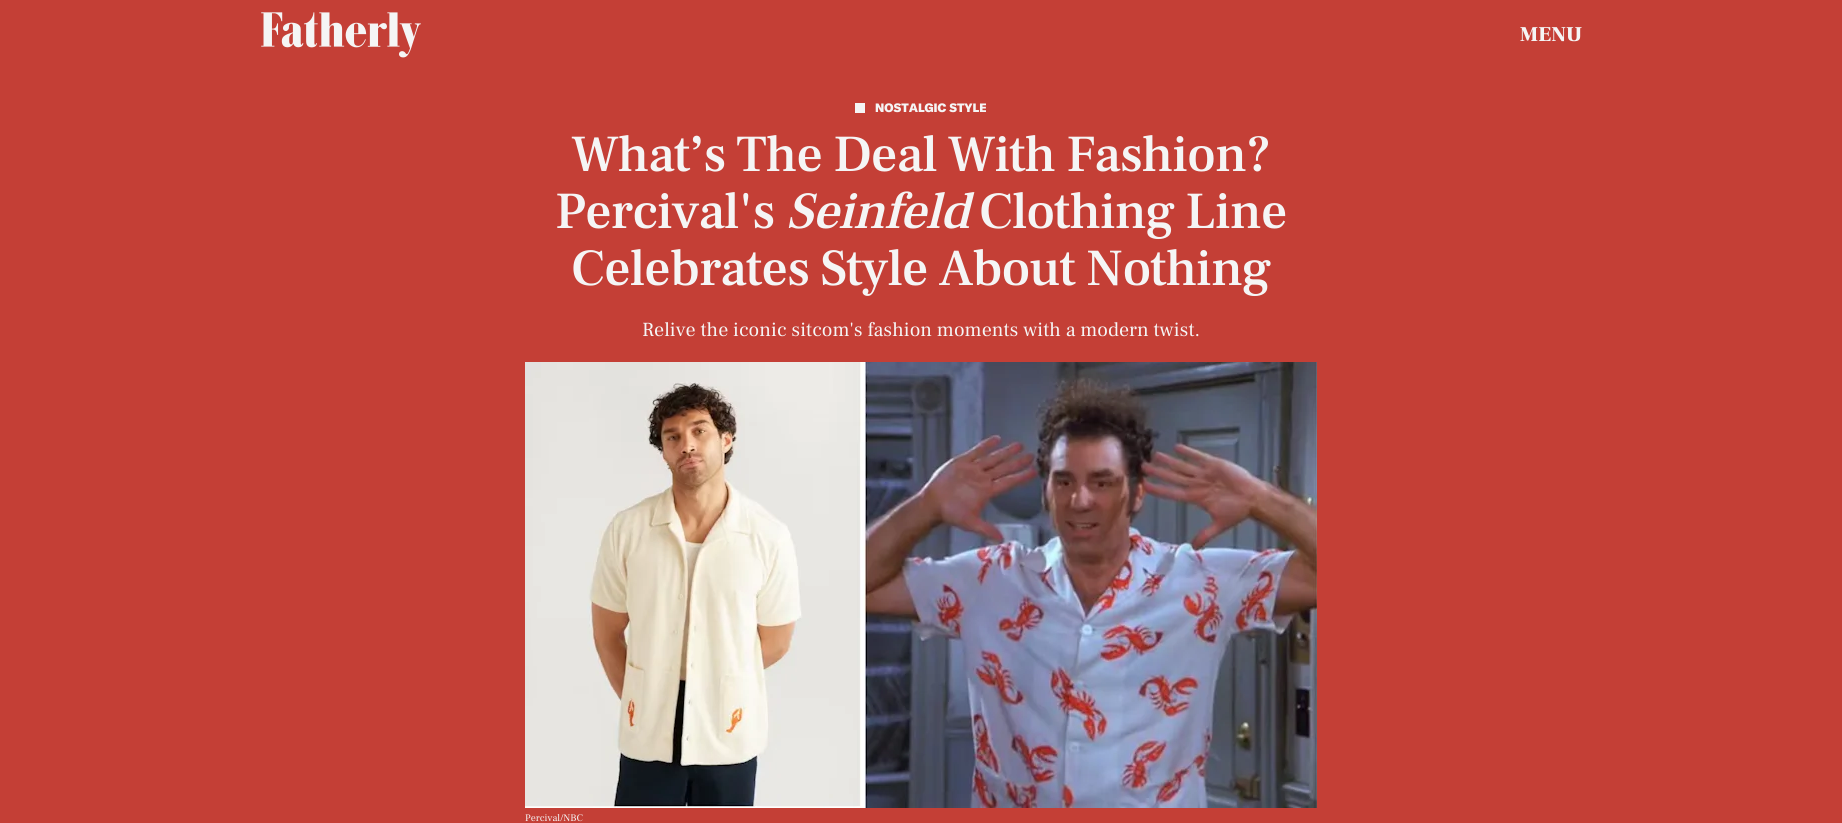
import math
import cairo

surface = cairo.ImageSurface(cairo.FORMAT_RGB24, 1842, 823)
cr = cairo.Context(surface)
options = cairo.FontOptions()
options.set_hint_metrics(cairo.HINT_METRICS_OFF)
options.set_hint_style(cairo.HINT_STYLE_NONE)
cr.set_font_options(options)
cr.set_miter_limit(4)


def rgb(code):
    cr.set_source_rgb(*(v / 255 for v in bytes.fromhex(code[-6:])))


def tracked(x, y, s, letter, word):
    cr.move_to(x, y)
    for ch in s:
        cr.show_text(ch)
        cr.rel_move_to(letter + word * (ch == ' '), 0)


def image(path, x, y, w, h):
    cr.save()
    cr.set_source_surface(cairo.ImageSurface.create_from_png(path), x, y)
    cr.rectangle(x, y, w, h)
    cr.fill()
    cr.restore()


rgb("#c43f36")
cr.paint()
image("img/1.png", 261, 12, 160, 46)
rgb("#f5f5f5")
cr.rectangle(855, 103, 10, 10)
cr.fill()
image("img/2.png", 525, 362, 792, 446)
cr.select_font_face("Frank Ruhl Libre Black")
cr.set_font_size(21)
cr.move_to(1520, 41)
cr.show_text("MENU")
cr.select_font_face("GT America Black")
cr.set_font_size(12)
cr.move_to(875, 112)
cr.show_text("NOSTALGIC STYLE")
cr.select_font_face("Frank Ruhl Libre Medium")
cr.set_font_size(52)
tracked(571, 171, "What’s The Deal With Fashion?", -1.05, 0)
tracked(555, 228, "Percival's", -1.05, 0)
cr.select_font_face("Frank Ruhl Libre Medium", cairo.FONT_SLANT_ITALIC)
tracked(786, 228, "Seinfeld", -1.05, 0)
cr.select_font_face("Frank Ruhl Libre Medium")
tracked(979, 228, "Clothing Line", -1.05, 0)
tracked(571, 285, "Celebrates Style About Nothing", -1.05, 0)
cr.select_font_face("Frank Ruhl Libre")
cr.set_font_size(20)
cr.move_to(642, 336)
cr.show_text("Relive the iconic sitcom's fashion moments with a modern twist.")
cr.set_font_size(10)
cr.move_to(525, 821)
cr.show_text("Percival/NBC")
surface.write_to_png("page.png")
